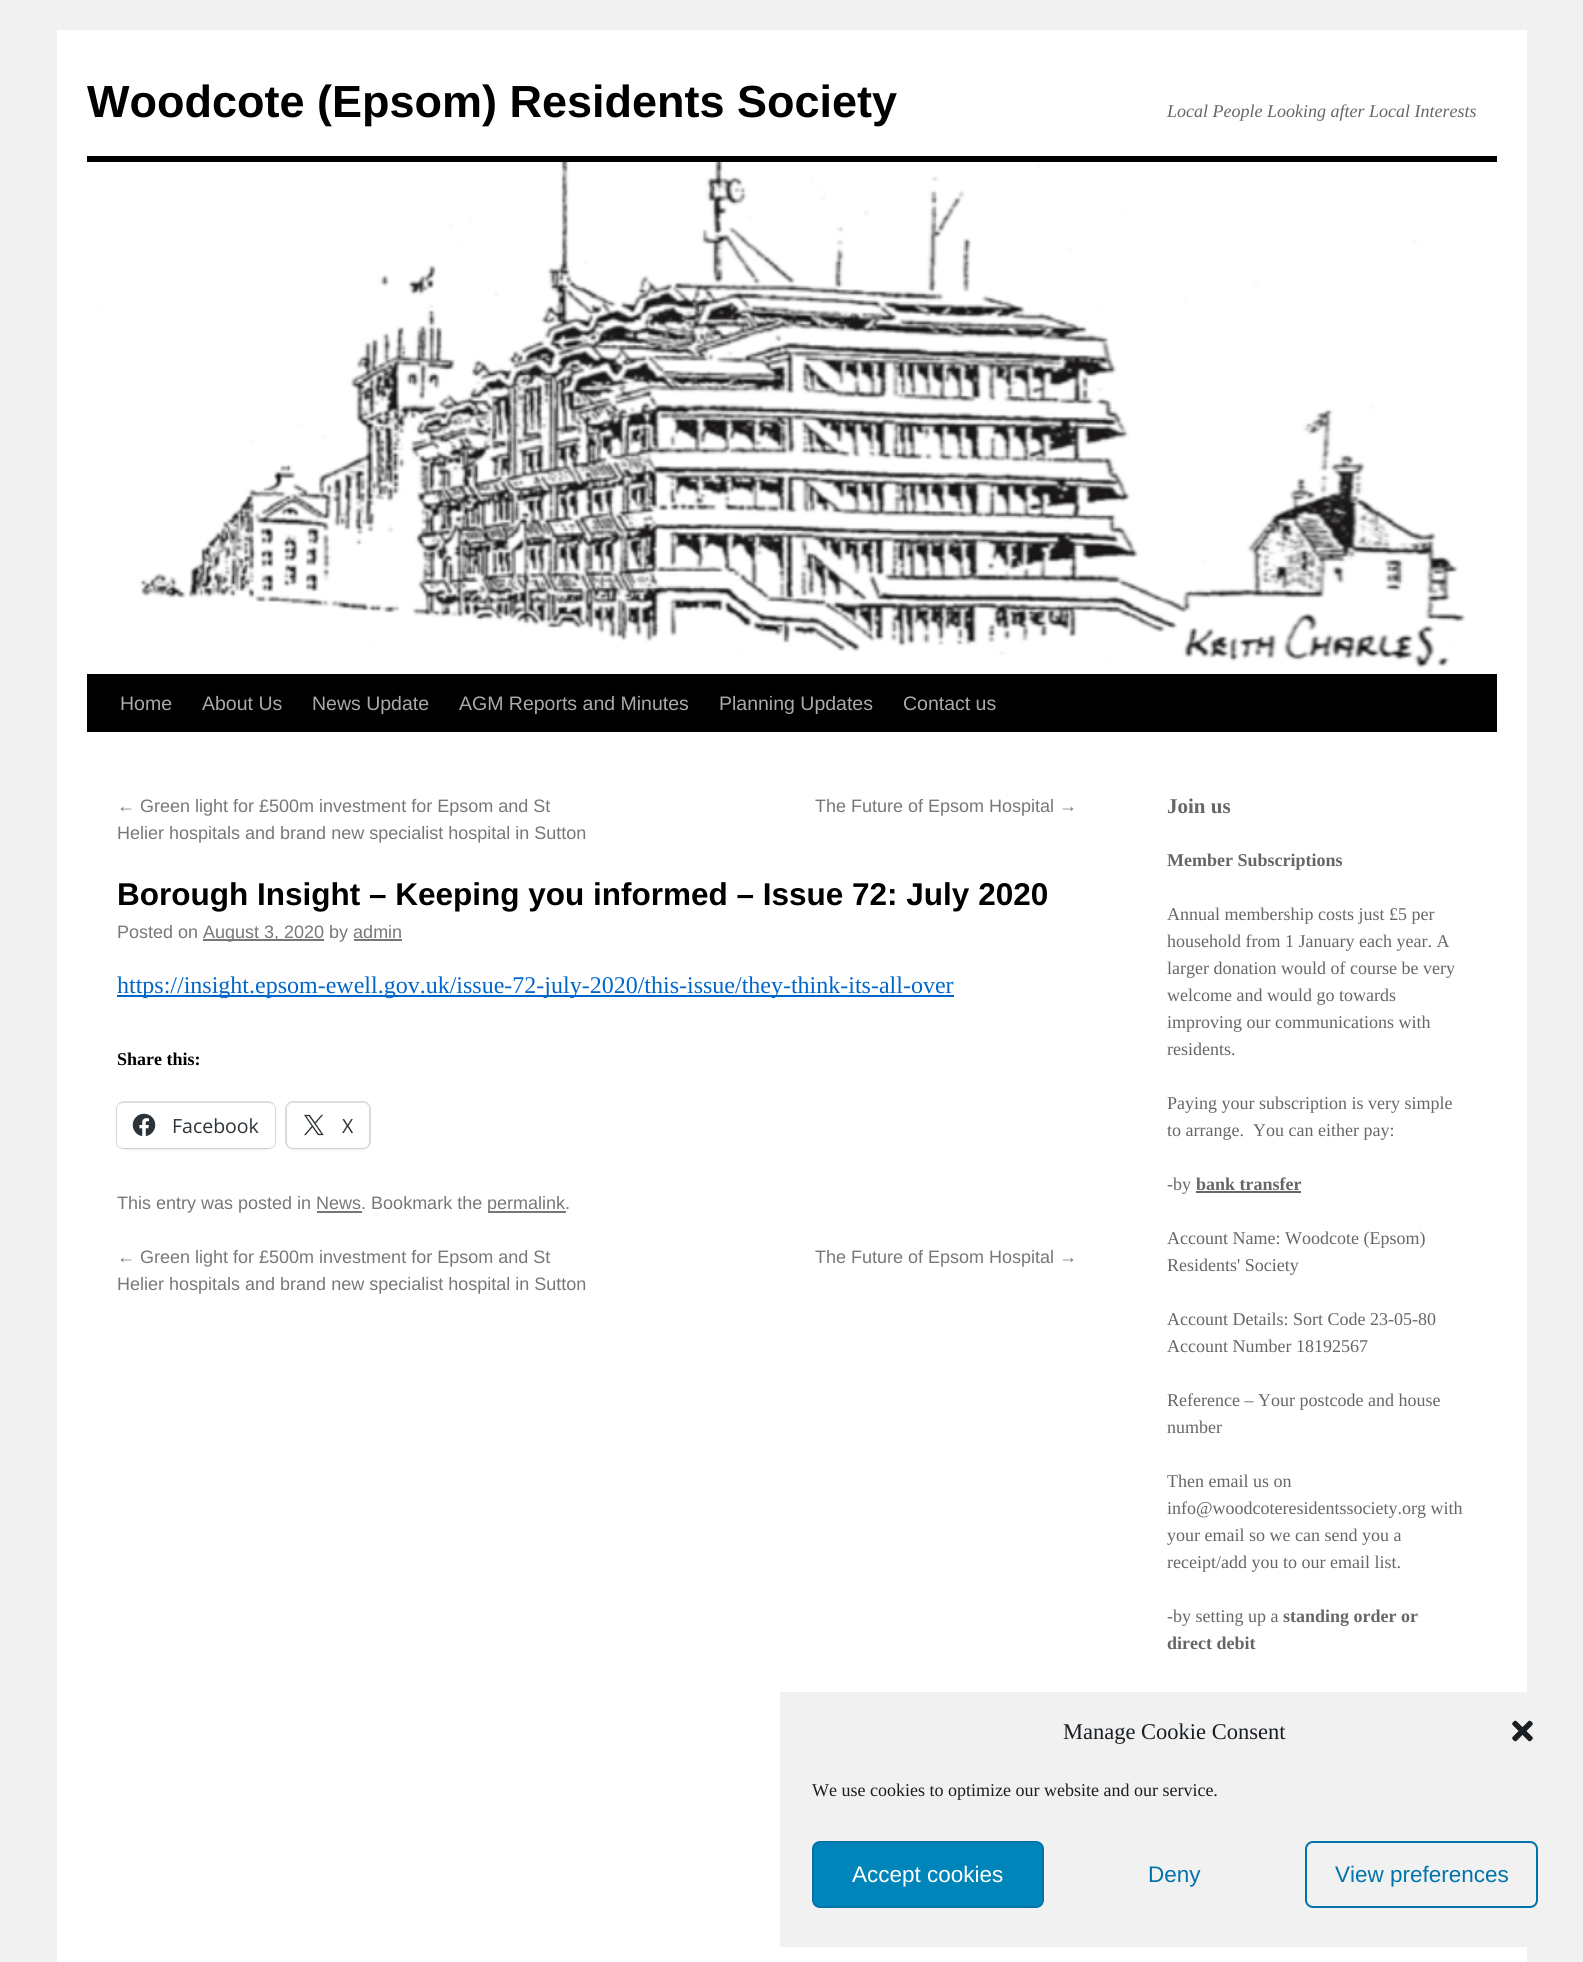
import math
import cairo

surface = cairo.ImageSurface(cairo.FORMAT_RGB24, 1583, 1962)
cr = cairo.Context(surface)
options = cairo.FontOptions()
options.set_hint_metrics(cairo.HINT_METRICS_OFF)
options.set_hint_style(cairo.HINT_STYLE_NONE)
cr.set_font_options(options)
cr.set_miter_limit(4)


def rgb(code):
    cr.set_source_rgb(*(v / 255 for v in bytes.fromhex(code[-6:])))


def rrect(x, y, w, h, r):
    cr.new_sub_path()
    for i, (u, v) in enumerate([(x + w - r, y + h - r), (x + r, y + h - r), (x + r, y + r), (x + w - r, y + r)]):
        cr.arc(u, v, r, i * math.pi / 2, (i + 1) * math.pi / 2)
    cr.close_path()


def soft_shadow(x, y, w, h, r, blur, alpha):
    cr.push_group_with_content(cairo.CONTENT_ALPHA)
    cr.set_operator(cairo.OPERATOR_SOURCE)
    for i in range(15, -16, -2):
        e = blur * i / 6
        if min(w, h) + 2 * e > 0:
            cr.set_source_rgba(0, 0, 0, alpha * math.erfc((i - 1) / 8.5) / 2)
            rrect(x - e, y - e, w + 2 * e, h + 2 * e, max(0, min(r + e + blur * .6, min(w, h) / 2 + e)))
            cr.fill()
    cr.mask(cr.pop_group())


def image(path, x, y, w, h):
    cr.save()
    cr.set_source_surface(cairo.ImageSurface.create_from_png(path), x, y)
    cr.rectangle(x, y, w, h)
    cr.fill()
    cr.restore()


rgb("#f1f1f1")
cr.paint()
for x, y, w, h, color in [
    (57, 30, 1470, 1932, "#ffffff"),
    (87, 156, 1410, 6, "#000000"),
    (87, 674, 1410, 58, "#000000"),
]:
    rgb(color)
    cr.rectangle(x, y, w, h)
    cr.fill()
image("img/1.png", 98, 162, 1368, 506)
for x, y, w, h, color in [
    (203, 939, 121, 2, "#777777"),
    (354, 939, 48, 2, "#777777"),
    (117, 995, 837, 2, "#0066cc"),
]:
    rgb(color)
    cr.rectangle(x, y, w, h)
    cr.fill()
rrect(117, 1102, 158, 46, 7)
rgb("#e0e0e0")
cr.stroke()
rgb("#000000")
soft_shadow(117, 1104, 158, 45, 6, 1.5, 0.12)
rgb("#ffffff")
rrect(117, 1103, 158, 45, 6)
cr.fill()
image("img/2.png", 132, 1113, 24, 23)
rrect(286, 1102, 84, 46, 7)
rgb("#e0e0e0")
cr.stroke()
rgb("#000000")
soft_shadow(287, 1104, 82, 45, 6, 1.5, 0.12)
rgb("#ffffff")
rrect(287, 1103, 82, 45, 6)
cr.fill()
image("img/3.png", 304, 1114, 20, 22)
for x, y, w, h, color in [
    (488, 1211, 78, 2, "#777777"),
    (317, 1211, 45, 2, "#777777"),
    (1196, 1191, 105, 2, "#666666"),
    (780, 1692, 747, 255, "#f1f1f1"),
]:
    rgb(color)
    cr.rectangle(x, y, w, h)
    cr.fill()
image("img/4.png", 1512, 1720, 21, 22)
rgb("#0085ba")
rrect(813, 1842, 230, 65, 7)
cr.fill_preserve()
rgb("#0073aa")
cr.stroke()
rrect(1306, 1842, 231, 65, 7)
cr.stroke()
cr.select_font_face("Liberation Sans", cairo.FONT_SLANT_NORMAL, cairo.FONT_WEIGHT_BOLD)
cr.set_font_size(45)
rgb("#000000")
cr.move_to(87, 117)
cr.show_text("Woodcote (Epsom) Residents Society")
cr.select_font_face("Liberation Serif", cairo.FONT_SLANT_ITALIC)
cr.set_font_size(18)
rgb("#666666")
cr.move_to(1167, 117)
cr.show_text("Local People Looking after Local Interests")
cr.select_font_face("Liberation Sans")
cr.set_font_size(19.5)
rgb("#aaaaaa")
for x, y, s in [
    (120, 710, "Home"),
    (202, 710, "About Us"),
    (312, 710, "News Update"),
    (459, 710, "AGM Reports and Minutes"),
    (719, 710, "Planning Updates"),
    (903, 710, "Contact us"),
]:
    cr.move_to(x, y)
    cr.show_text(s)
cr.set_font_size(18)
rgb("#777777")
for x, y, s in [
    (117, 812, "← Green light for £500m investment for Epsom and St"),
    (117, 839, "Helier hospitals and brand new specialist hospital in Sutton"),
    (815, 812, "The Future of Epsom Hospital →"),
]:
    cr.move_to(x, y)
    cr.show_text(s)
cr.select_font_face("Liberation Sans", cairo.FONT_SLANT_NORMAL, cairo.FONT_WEIGHT_BOLD)
cr.set_font_size(31.5)
rgb("#000000")
cr.move_to(117, 905)
cr.show_text("Borough Insight – Keeping you informed – Issue 72: July 2020")
cr.select_font_face("Liberation Sans")
cr.set_font_size(18)
rgb("#777777")
cr.move_to(117, 938)
cr.show_text("Posted on")
cr.move_to(203, 938)
cr.show_text("August 3, 2020 by admin")
cr.select_font_face("Liberation Serif")
cr.set_font_size(24)
rgb("#0066cc")
cr.move_to(117, 993)
cr.show_text("https://insight.epsom-ewell.gov.uk/issue-72-july-2020/this-issue/they-think-its-all-over")
cr.select_font_face("Liberation Serif", cairo.FONT_SLANT_NORMAL, cairo.FONT_WEIGHT_BOLD)
cr.set_font_size(18)
rgb("#000000")
cr.move_to(117, 1065)
cr.show_text("Share this:")
cr.select_font_face("Open Sans")
cr.set_font_size(19.5)
rgb("#2c3338")
cr.move_to(172, 1133)
cr.show_text("Facebook")
cr.move_to(342, 1133)
cr.show_text("X")
cr.select_font_face("Liberation Sans")
cr.set_font_size(18)
rgb("#777777")
for x, y, s in [
    (117, 1209, "This entry was posted in News. Bookmark the"),
    (487, 1209, "permalink."),
    (117, 1263, "← Green light for £500m investment for Epsom and St"),
    (117, 1290, "Helier hospitals and brand new specialist hospital in Sutton"),
    (815, 1263, "The Future of Epsom Hospital →"),
]:
    cr.move_to(x, y)
    cr.show_text(s)
cr.select_font_face("Liberation Serif", cairo.FONT_SLANT_NORMAL, cairo.FONT_WEIGHT_BOLD)
cr.set_font_size(21)
rgb("#666666")
cr.move_to(1167, 813)
cr.show_text("Join us")
cr.set_font_size(18)
cr.move_to(1167, 866)
cr.show_text("Member Subscriptions")
cr.select_font_face("Liberation Serif")
for x, y, s in [
    (1167, 920, "Annual membership costs just £5 per"),
    (1167, 947, "household from 1 January each year. A"),
    (1167, 974, "larger donation would of course be very"),
    (1167, 1001, "welcome and would go towards"),
    (1167, 1028, "improving our communications with"),
    (1167, 1055, "residents."),
    (1167, 1109, "Paying your subscription is very simple"),
    (1167, 1136, "to arrange.  You can either pay:"),
    (1167, 1190, "-by"),
]:
    cr.move_to(x, y)
    cr.show_text(s)
cr.select_font_face("Liberation Serif", cairo.FONT_SLANT_NORMAL, cairo.FONT_WEIGHT_BOLD)
cr.move_to(1196, 1190)
cr.show_text("bank transfer")
cr.select_font_face("Liberation Serif")
for x, y, s in [
    (1167, 1244, "Account Name: Woodcote (Epsom)"),
    (1167, 1271, "Residents' Society"),
    (1167, 1325, "Account Details: Sort Code 23-05-80"),
    (1167, 1352, "Account Number 18192567"),
    (1167, 1406, "Reference – Your postcode and house"),
    (1167, 1433, "number"),
    (1167, 1487, "Then email us on"),
    (1167, 1514, "info@woodcoteresidentssociety.org with"),
    (1167, 1541, "your email so we can send you a"),
    (1167, 1568, "receipt/add you to our email list."),
    (1167, 1622, "-by setting up a"),
]:
    cr.move_to(x, y)
    cr.show_text(s)
cr.select_font_face("Liberation Serif", cairo.FONT_SLANT_NORMAL, cairo.FONT_WEIGHT_BOLD)
cr.move_to(1283, 1622)
cr.show_text("standing order or")
cr.move_to(1167, 1649)
cr.show_text("direct debit")
cr.select_font_face("Liberation Serif")
cr.set_font_size(22.5)
rgb("#191e23")
cr.move_to(1063, 1739)
cr.show_text("Manage Cookie Consent")
cr.set_font_size(18)
cr.move_to(812, 1796)
cr.show_text("We use cookies to optimize our website and our service.")
cr.select_font_face("Liberation Sans")
cr.set_font_size(22.5)
rgb("#ffffff")
cr.move_to(852, 1882)
cr.show_text("Accept cookies")
rgb("#0073aa")
cr.move_to(1148, 1882)
cr.show_text("Deny")
cr.move_to(1335, 1882)
cr.show_text("View preferences")
surface.write_to_png("page.png")
